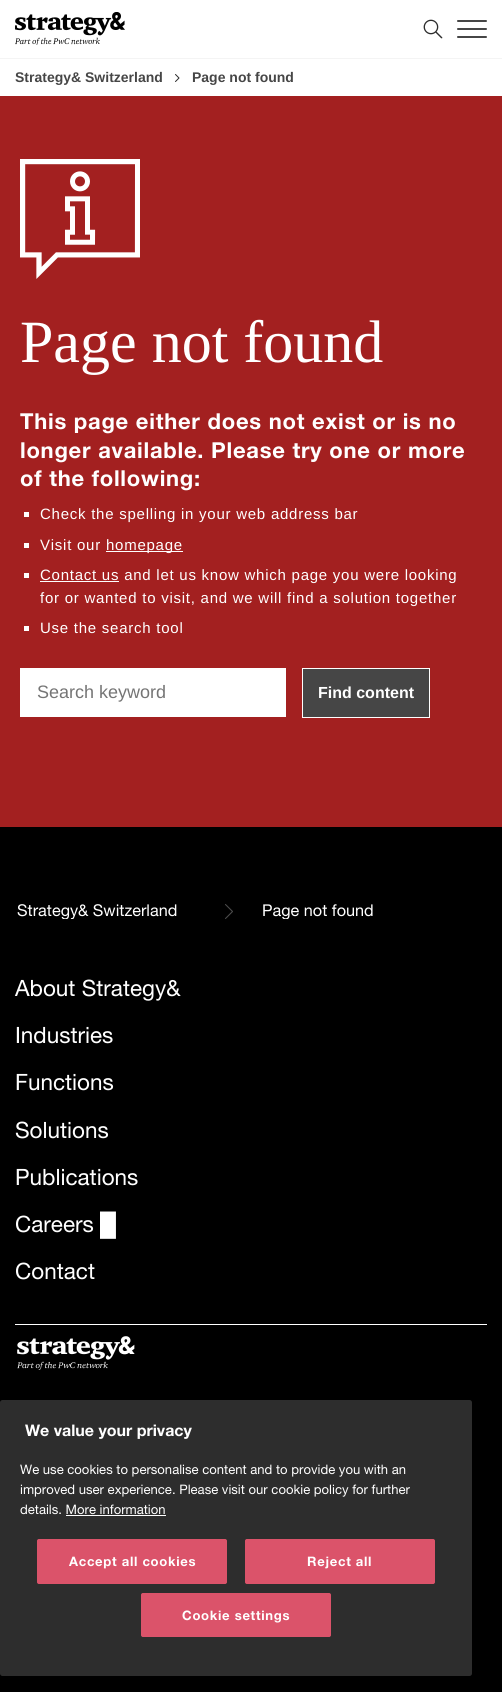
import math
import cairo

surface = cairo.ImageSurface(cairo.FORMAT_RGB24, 502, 1692)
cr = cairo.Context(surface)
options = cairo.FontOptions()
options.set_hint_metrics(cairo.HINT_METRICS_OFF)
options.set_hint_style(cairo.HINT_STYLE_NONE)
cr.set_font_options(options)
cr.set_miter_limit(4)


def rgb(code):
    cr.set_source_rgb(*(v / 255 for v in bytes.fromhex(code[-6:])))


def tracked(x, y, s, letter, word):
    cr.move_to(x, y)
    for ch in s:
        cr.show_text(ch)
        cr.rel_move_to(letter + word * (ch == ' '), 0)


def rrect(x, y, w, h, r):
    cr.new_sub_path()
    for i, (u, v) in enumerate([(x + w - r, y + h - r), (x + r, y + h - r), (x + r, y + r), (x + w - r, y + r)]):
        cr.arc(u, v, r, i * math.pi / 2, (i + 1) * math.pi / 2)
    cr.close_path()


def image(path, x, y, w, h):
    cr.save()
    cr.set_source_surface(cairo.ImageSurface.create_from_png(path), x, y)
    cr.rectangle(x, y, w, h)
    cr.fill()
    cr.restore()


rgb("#ffffff")
cr.paint()
rgb("#f4f4f4")
cr.rectangle(0, 58, 502, 1)
cr.fill()
image("img/1.png", 15, 12, 110, 33)
image("img/2.png", 423, 19, 20, 20)
rgb("#464646")
rrect(457, 20, 30, 2, 1)
cr.fill()
rrect(457, 28, 30, 2, 1)
cr.fill()
rrect(457, 36, 30, 2, 1)
cr.fill()
cr.new_path()
cr.move_to(175.5, 81.5)
cr.line_to(179, 78)
cr.line_to(175.5, 74.5)
rgb("#2d2d2d")
cr.set_line_width(1)
cr.set_line_cap(cairo.LINE_CAP_ROUND)
cr.set_line_join(cairo.LINE_JOIN_ROUND)
cr.stroke()
rgb("#a32020")
cr.rectangle(0, 96, 502, 731)
cr.fill()
image("img/3.png", 20, 159, 120, 120)
for x, y, w, h, color in [
    (24, 512, 5, 5, "#ffffff"),
    (24, 543, 5, 5, "#ffffff"),
    (106, 551, 77, 1, "#ffffff"),
    (24, 573, 5, 5, "#ffffff"),
    (40, 581, 79, 1, "#ffffff"),
    (24, 626, 5, 5, "#ffffff"),
    (20, 668, 266, 49, "#ffffff"),
]:
    rgb(color)
    cr.rectangle(x, y, w, h)
    cr.fill()
rgb("#464646")
cr.rectangle(302.5, 668.5, 127, 49)
cr.fill_preserve()
rgb("#ffffff")
cr.set_line_cap(cairo.LINE_CAP_BUTT)
cr.set_line_join(cairo.LINE_JOIN_MITER)
cr.stroke()
rgb("#000000")
cr.rectangle(0, 827, 502, 865)
cr.fill()
image("img/4.png", 225, 904, 8, 15)
rgb("#ffffff")
cr.rectangle(15, 1324, 472, 1)
cr.fill()
image("img/5.png", 17, 1336, 118, 34)
rgb("#2d2d2d")
rrect(0, 1400, 472, 276, 2.5)
cr.fill()
rgb("#ffffff")
cr.rectangle(66, 1515, 100, 1)
cr.fill()
rgb("#db536a")
rrect(37.5, 1539.5, 189, 44, 1.5)
cr.fill_preserve()
cr.stroke()
rrect(245.5, 1539.5, 189, 44, 1.5)
cr.fill_preserve()
cr.stroke()
rrect(141.5, 1593.5, 189, 43, 1.5)
cr.fill_preserve()
cr.stroke()
cr.select_font_face("Liberation Sans", cairo.FONT_SLANT_NORMAL, cairo.FONT_WEIGHT_BOLD)
cr.set_font_size(14)
rgb("#464646")
cr.move_to(15, 82)
cr.show_text("Strategy& Switzerland")
cr.move_to(192, 82)
cr.show_text("Page not found")
cr.select_font_face("Liberation Serif")
cr.set_font_size(60)
rgb("#ffffff")
cr.move_to(20, 362)
cr.show_text("Page not found")
cr.select_font_face("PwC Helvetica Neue", cairo.FONT_SLANT_NORMAL, cairo.FONT_WEIGHT_BOLD)
cr.set_font_size(22)
for x, y, s in [
    (20, 429, "This page either does not exist or is no"),
    (20, 458, "longer available. Please try one or more"),
    (20, 486, "of the following:"),
]:
    tracked(x, y, s, 0.75, 0)
cr.select_font_face("Liberation Sans")
cr.set_font_size(15)
for x, y, s in [
    (40, 519, "Check the spelling in your web address bar"),
    (40, 550, "Visit our"),
    (106, 550, "homepage"),
    (40, 580, "Contact us and let us know which page you were looking"),
    (40, 603, "for or wanted to visit, and we will find a solution together"),
    (40, 633, "Use the search tool"),
]:
    tracked(x, y, s, 0.75, 0)
cr.set_font_size(18)
rgb("#757575")
cr.move_to(37, 698)
cr.show_text("Search keyword")
cr.select_font_face("Liberation Sans", cairo.FONT_SLANT_NORMAL, cairo.FONT_WEIGHT_BOLD)
cr.set_font_size(16)
rgb("#ffffff")
cr.move_to(318, 698)
cr.show_text("Find content")
cr.save()
cr.rectangle(12, 902, 179, 17)
cr.clip()
cr.select_font_face("PwC Helvetica Neue")
cr.set_font_size(16.25)
cr.move_to(17, 916)
cr.show_text("Strategy& Switzerland")
cr.restore()
cr.save()
cr.rectangle(215, 902, 173, 17)
cr.clip()
cr.select_font_face("PwC Helvetica Neue")
cr.set_font_size(16.25)
cr.move_to(262, 916)
cr.show_text("Page not found")
cr.restore()
cr.select_font_face("PwC Helvetica Neue")
cr.set_font_size(22.5)
for x, y, s in [
    (15, 996, "About Strategy&"),
    (15, 1043, "Industries"),
    (15, 1090, "Functions"),
    (15, 1138, "Solutions"),
    (15, 1185, "Publications"),
    (15, 1232, "Careers"),
]:
    cr.move_to(x, y)
    cr.show_text(s)
cr.select_font_face("Liberation Sans")
cr.move_to(100, 1232)
cr.show_text("█")
cr.select_font_face("PwC Helvetica Neue")
cr.move_to(15, 1279)
cr.show_text("Contact")
cr.select_font_face("PwC Helvetica Neue", cairo.FONT_SLANT_NORMAL, cairo.FONT_WEIGHT_BOLD)
cr.set_font_size(16)
cr.move_to(25, 1436)
cr.show_text("We value your privacy")
cr.select_font_face("PwC Helvetica Neue")
cr.set_font_size(13.1)
for x, y, s in [
    (20, 1474, "We use cookies to personalise content and to provide you with an"),
    (20, 1494, "improved user experience. Please visit our cookie policy for further"),
    (20, 1514, "details. More information"),
]:
    cr.move_to(x, y)
    cr.show_text(s)
cr.select_font_face("PwC Helvetica Neue", cairo.FONT_SLANT_NORMAL, cairo.FONT_WEIGHT_BOLD)
for x, y, s in [
    (69, 1566, "Accept all cookies"),
    (307, 1566, "Reject all"),
    (182, 1620, "Cookie settings"),
]:
    tracked(x, y, s, 0.7, 0)
surface.write_to_png("page.png")
